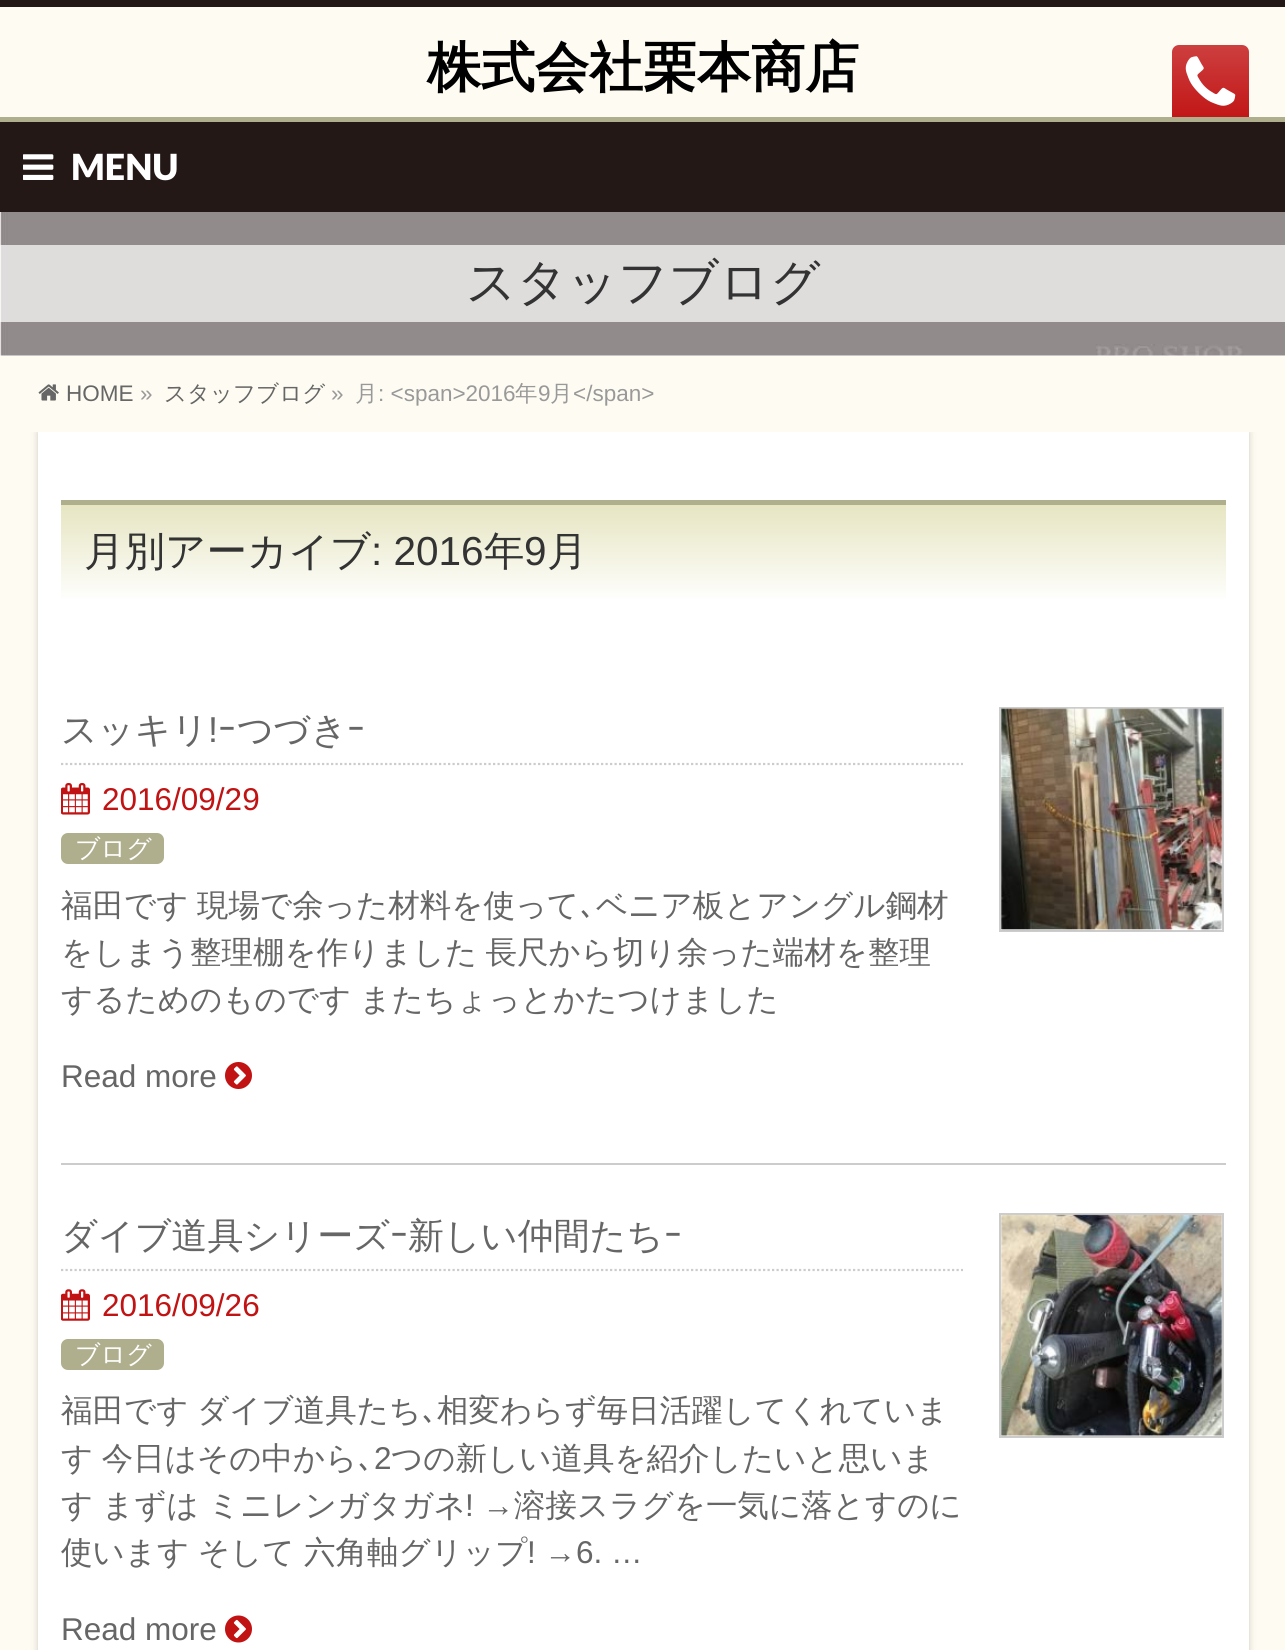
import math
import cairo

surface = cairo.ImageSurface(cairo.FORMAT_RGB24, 1285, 1650)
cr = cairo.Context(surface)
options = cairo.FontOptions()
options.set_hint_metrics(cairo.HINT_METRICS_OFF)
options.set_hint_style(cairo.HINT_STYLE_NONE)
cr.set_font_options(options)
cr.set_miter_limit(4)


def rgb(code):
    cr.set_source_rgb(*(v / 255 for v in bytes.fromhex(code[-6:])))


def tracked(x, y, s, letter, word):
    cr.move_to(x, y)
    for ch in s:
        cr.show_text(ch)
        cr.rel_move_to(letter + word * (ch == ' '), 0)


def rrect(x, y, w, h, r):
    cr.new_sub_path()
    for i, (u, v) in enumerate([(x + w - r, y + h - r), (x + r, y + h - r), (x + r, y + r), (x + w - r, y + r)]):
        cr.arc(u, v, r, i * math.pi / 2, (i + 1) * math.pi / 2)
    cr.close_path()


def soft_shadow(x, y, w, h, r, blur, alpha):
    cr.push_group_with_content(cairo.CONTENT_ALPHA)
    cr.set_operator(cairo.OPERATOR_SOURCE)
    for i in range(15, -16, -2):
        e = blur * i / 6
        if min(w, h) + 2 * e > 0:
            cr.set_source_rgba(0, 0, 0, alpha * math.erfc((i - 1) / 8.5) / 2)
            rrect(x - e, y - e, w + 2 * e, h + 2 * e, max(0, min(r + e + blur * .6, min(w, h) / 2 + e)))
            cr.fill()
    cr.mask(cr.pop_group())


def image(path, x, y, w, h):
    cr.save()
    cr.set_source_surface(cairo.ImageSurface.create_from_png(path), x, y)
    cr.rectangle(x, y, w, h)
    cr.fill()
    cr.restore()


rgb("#ffffff")
cr.paint()
rgb("#fefcf2")
cr.rectangle(0, 7, 1285, 110)
cr.fill()
rgb("#231815")
cr.rectangle(0, 0, 1285, 7)
cr.fill()
gradient = cairo.LinearGradient(1211, 45, 1211, 124)
gradient.add_color_stop_rgba(0, 0.804, 0.247, 0.247, 1)
gradient.add_color_stop_rgba(1, 0.757, 0.075, 0.075, 1)
cr.set_source(gradient)
rrect(1172, 45, 77, 79, 7)
cr.fill()
image("img/1.png", 1185, 56, 51, 50)
rgb("#231815")
cr.rectangle(0, 122, 1285, 90)
cr.fill()
rgb("#afae8d")
cr.rectangle(0, 117, 1285, 5)
cr.fill()
image("img/2.png", 23, 154, 31, 26)
image("img/3.png", 0, 212, 1285, 144)
cr.set_source_rgba(1, 1, 1, 0.7)
cr.rectangle(0, 245, 1285, 77)
cr.fill()
rgb("#fefcf2")
cr.rectangle(0, 432, 1285, 1218)
cr.fill()
rgb("#000000")
soft_shadow(38, 432, 1211, 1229, 0, 3.5, 0.2)
rgb("#fefcf2")
cr.rectangle(0, 356, 1285, 76)
cr.fill()
image("img/4.png", 38, 384, 21, 17)
rgb("#ffffff")
cr.rectangle(38, 432, 1211, 1218)
cr.fill()
gradient = cairo.LinearGradient(644, 504, 644, 603)
gradient.add_color_stop_rgba(0, 0.902, 0.898, 0.757, 1)
gradient.add_color_stop_rgba(1, 1, 1, 1, 1)
cr.set_source(gradient)
cr.rectangle(61, 505, 1165, 94)
cr.fill()
rgb("#afae8d")
cr.rectangle(61, 500, 1165, 5)
cr.fill()
rgb("#cccccc")
cr.rectangle(61, 1163, 1165, 2)
cr.fill()
cr.new_path()
cr.move_to(61, 764)
cr.line_to(963, 764)
cr.set_line_width(2.2)
cr.set_dash([2.25, 2.25])
cr.stroke()
image("img/5.png", 61, 783, 29, 32)
rgb("#afae8d")
rrect(61, 833, 103, 31, 7)
cr.fill()
image("img/6.png", 225, 1062, 27, 27)
cr.rectangle(1000, 708, 223, 223)
rgb("#cccccc")
cr.set_line_width(2)
cr.set_dash([])
cr.stroke()
image("img/7.png", 1001, 708, 222, 223)
cr.new_path()
cr.move_to(61, 1270)
cr.line_to(963, 1270)
cr.set_line_width(2.2)
cr.set_dash([2.25, 2.25])
cr.stroke()
image("img/8.png", 61, 1289, 29, 32)
rgb("#afae8d")
rrect(61, 1339, 103, 31, 7)
cr.fill()
image("img/9.png", 225, 1615, 27, 28)
cr.rectangle(1000, 1214, 223, 223)
rgb("#cccccc")
cr.set_line_width(2)
cr.set_dash([])
cr.stroke()
image("img/10.png", 1001, 1214, 222, 223)
cr.select_font_face("WenQuanYi Zen Hei", cairo.FONT_SLANT_NORMAL, cairo.FONT_WEIGHT_BOLD)
cr.set_font_size(54)
rgb("#000000")
cr.move_to(427, 86)
cr.show_text("株式会社栗本商店")
cr.select_font_face("Lato Black")
cr.set_font_size(36)
rgb("#ffffff")
cr.move_to(71, 180)
cr.show_text("MENU")
cr.select_font_face("WenQuanYi Zen Hei Medium")
cr.set_font_size(49.5)
rgb("#333333")
cr.move_to(466, 299)
cr.show_text("スタッフブログ")
cr.select_font_face("Liberation Sans")
cr.set_font_size(22.5)
rgb("#666666")
cr.move_to(66, 401)
cr.show_text("HOME")
rgb("#999999")
cr.move_to(140, 401)
cr.show_text("»")
cr.select_font_face("WenQuanYi Zen Hei Medium")
rgb("#666666")
cr.move_to(164, 401)
cr.show_text("スタッフブログ")
cr.select_font_face("Liberation Sans")
rgb("#999999")
cr.move_to(331, 401)
cr.show_text("»")
cr.select_font_face("WenQuanYi Zen Hei Medium")
cr.move_to(355, 401)
cr.show_text("月")
cr.select_font_face("Liberation Sans")
cr.move_to(378, 401)
cr.show_text(": <span>2016")
cr.select_font_face("WenQuanYi Zen Hei Medium")
cr.move_to(515, 401)
cr.show_text("年")
cr.select_font_face("Liberation Sans")
cr.move_to(538, 401)
cr.show_text("9")
cr.select_font_face("WenQuanYi Zen Hei Medium")
cr.move_to(550, 401)
cr.show_text("月")
cr.select_font_face("Liberation Sans")
cr.move_to(573, 401)
cr.show_text("</span>")
cr.select_font_face("WenQuanYi Zen Hei Medium")
cr.set_font_size(40.5)
rgb("#333333")
cr.move_to(84, 565)
cr.show_text("月別アーカイブ")
cr.select_font_face("Liberation Sans")
cr.move_to(371, 565)
cr.show_text(": 2016")
cr.select_font_face("WenQuanYi Zen Hei Medium")
cr.move_to(484, 565)
cr.show_text("年")
cr.select_font_face("Liberation Sans")
cr.move_to(524, 565)
cr.show_text("9")
cr.select_font_face("WenQuanYi Zen Hei Medium")
cr.move_to(547, 565)
cr.show_text("月")
cr.set_font_size(36)
rgb("#666666")
cr.move_to(61, 742)
cr.show_text("スッキリ")
cr.select_font_face("Liberation Sans")
cr.move_to(208, 742)
cr.show_text("!")
cr.select_font_face("IPAPGothic")
cr.move_to(218, 742)
cr.show_text("ｰ")
cr.select_font_face("WenQuanYi Zen Hei Medium")
cr.move_to(237, 742)
cr.show_text("つづき")
cr.select_font_face("IPAPGothic")
cr.move_to(347, 742)
cr.show_text("ｰ")
cr.select_font_face("Liberation Sans")
cr.set_font_size(31.5)
rgb("#c11313")
cr.move_to(102, 810)
cr.show_text("2016/09/29")
cr.select_font_face("WenQuanYi Zen Hei Medium")
cr.set_font_size(25)
rgb("#ffffff")
cr.move_to(75, 857)
cr.show_text("ブログ")
cr.set_font_size(31.5)
rgb("#666666")
tracked(61, 916, "福田です 現場で余った材料を使って", 0, -1)
cr.select_font_face("IPAPGothic")
cr.move_to(580, 916)
cr.show_text("､")
cr.select_font_face("WenQuanYi Zen Hei Medium")
cr.move_to(596, 916)
cr.show_text("ベニア板とアングル鋼材")
tracked(61, 963, "をしまう整理棚を作りました 長尺から切り余った端材を整理", 0, -1)
tracked(61, 1010, "するためのものです またちょっとかたつけました", 0, -1)
cr.select_font_face("Liberation Sans")
cr.move_to(61, 1087)
cr.show_text("Read more")
cr.select_font_face("WenQuanYi Zen Hei Medium")
cr.set_font_size(36)
cr.move_to(61, 1248)
cr.show_text("ダイブ道具シリーズ")
cr.select_font_face("IPAPGothic")
cr.move_to(390, 1248)
cr.show_text("ｰ")
cr.select_font_face("WenQuanYi Zen Hei Medium")
cr.move_to(408, 1248)
cr.show_text("新しい仲間たち")
cr.select_font_face("IPAPGothic")
cr.move_to(664, 1248)
cr.show_text("ｰ")
cr.select_font_face("Liberation Sans")
cr.set_font_size(31.5)
rgb("#c11313")
cr.move_to(102, 1316)
cr.show_text("2016/09/26")
cr.select_font_face("WenQuanYi Zen Hei Medium")
cr.set_font_size(25)
rgb("#ffffff")
cr.move_to(75, 1363)
cr.show_text("ブログ")
cr.set_font_size(31.5)
rgb("#666666")
tracked(61, 1421, "福田です ダイブ道具たち", 0, -1)
cr.select_font_face("IPAPGothic")
cr.move_to(422, 1421)
cr.show_text("､")
cr.select_font_face("WenQuanYi Zen Hei Medium")
cr.move_to(437, 1421)
cr.show_text("相変わらず毎日活躍してくれていま")
tracked(61, 1469, "す 今日はその中から", 0, -1)
cr.select_font_face("IPAPGothic")
cr.move_to(358, 1469)
cr.show_text("､")
cr.select_font_face("Liberation Sans")
cr.move_to(374, 1469)
cr.show_text("2")
cr.select_font_face("WenQuanYi Zen Hei Medium")
for x, y, s in [
    (391, 1469, "つの新しい道具を紹介したいと思いま"),
    (61, 1516, "す"),
    (102, 1516, "まずは"),
    (208, 1516, "ミニレンガタガネ"),
]:
    cr.move_to(x, y)
    cr.show_text(s)
cr.select_font_face("Liberation Sans")
cr.move_to(465, 1516)
cr.show_text("! →")
cr.select_font_face("WenQuanYi Zen Hei Medium")
for x, y, s in [
    (514, 1516, "溶接スラグを一気に落とすのに"),
    (61, 1563, "使います"),
    (198, 1563, "そして"),
    (304, 1563, "六角軸グリップ"),
]:
    cr.move_to(x, y)
    cr.show_text(s)
cr.select_font_face("Liberation Sans")
cr.move_to(527, 1563)
cr.show_text("! →6. …")
cr.move_to(61, 1640)
cr.show_text("Read more")
surface.write_to_png("page.png")
